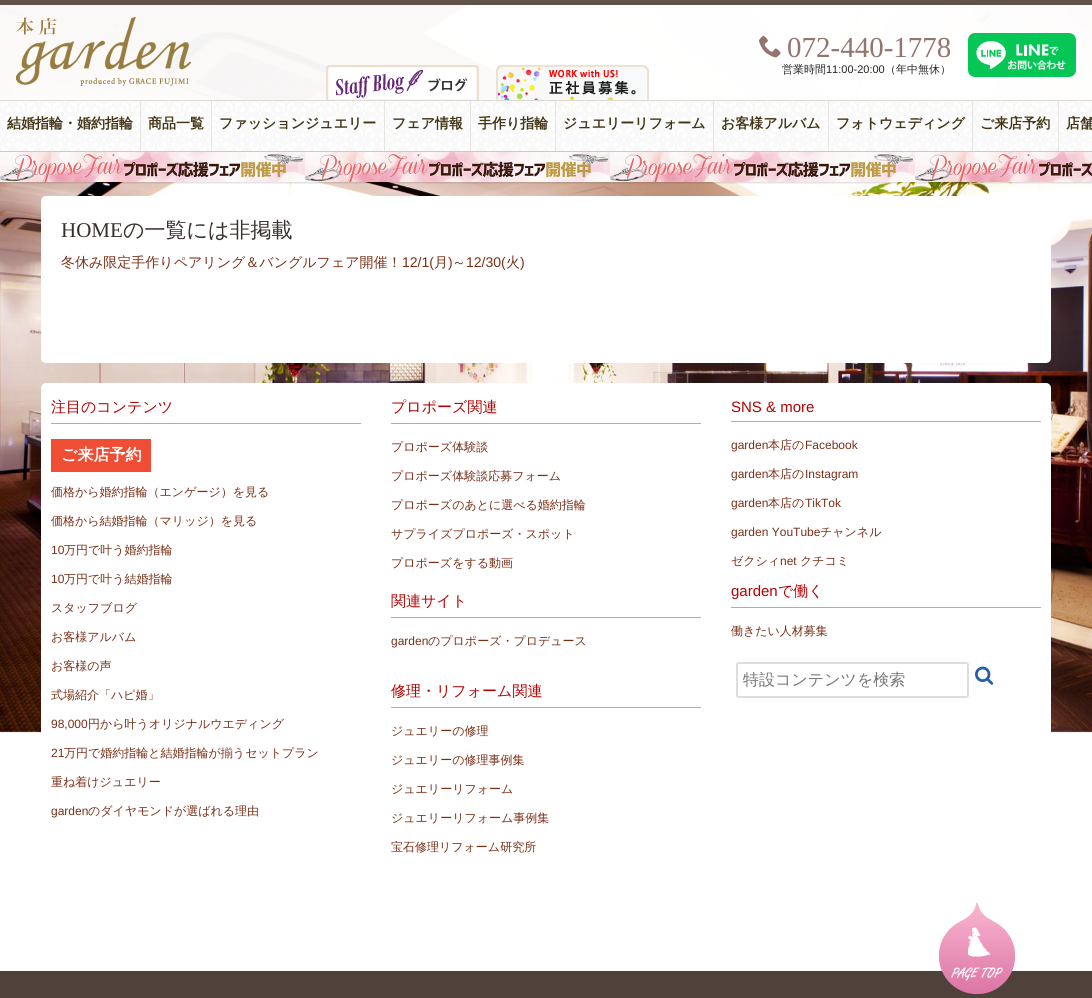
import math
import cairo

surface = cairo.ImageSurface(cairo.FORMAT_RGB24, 1092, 998)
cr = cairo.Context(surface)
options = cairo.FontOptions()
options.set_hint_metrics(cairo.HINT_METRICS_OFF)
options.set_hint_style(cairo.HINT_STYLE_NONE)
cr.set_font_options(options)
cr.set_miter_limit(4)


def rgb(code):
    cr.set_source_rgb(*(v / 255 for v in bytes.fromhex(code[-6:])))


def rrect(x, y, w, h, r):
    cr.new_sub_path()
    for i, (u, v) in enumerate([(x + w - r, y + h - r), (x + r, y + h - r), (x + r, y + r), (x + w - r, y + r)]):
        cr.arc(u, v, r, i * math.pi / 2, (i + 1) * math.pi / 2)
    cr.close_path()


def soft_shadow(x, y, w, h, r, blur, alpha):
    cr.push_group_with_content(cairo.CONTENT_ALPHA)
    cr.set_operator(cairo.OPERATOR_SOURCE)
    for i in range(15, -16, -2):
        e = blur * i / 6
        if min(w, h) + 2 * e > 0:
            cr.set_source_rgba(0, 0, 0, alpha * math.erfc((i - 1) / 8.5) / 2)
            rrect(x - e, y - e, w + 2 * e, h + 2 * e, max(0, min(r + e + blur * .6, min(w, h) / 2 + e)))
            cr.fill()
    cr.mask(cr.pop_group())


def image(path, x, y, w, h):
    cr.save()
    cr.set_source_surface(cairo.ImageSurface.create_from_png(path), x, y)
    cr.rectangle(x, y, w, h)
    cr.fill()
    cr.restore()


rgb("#ffffff")
cr.paint()
image("img/1.png", 0, 5, 1092, 728)
cr.set_source_rgba(1, 1, 1, 0.95)
cr.rectangle(0, 5, 1092, 146)
cr.fill()
rgb("#61524a")
cr.rectangle(0, 0, 1092, 5)
cr.fill()
image("img/2.png", 16, 17, 175, 69)
image("img/3.png", 759, 35, 22, 23)
image("img/4.png", 968, 33, 108, 44)
cr.save()
cr.rectangle(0, 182, 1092, 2)
cr.clip()
rgb("#000000")
soft_shadow(0, 102, 1092, 81, 0, 1, 0.15)
cr.restore()
image("img/5.png", 326, 65, 153, 35)
image("img/6.png", 496, 65, 153, 35)
cr.set_source_rgba(1, 1, 1, 0.98)
cr.rectangle(0, 101, 1045, 50)
cr.fill()
image("img/7.png", 0, 101, 1092, 50)
rgb("#ded9d0")
cr.rectangle(0, 100, 1092, 1)
cr.fill()
cr.set_source_rgba(1, 1, 1, 0.62)
cr.rectangle(0, 101, 1092, 50)
cr.fill()
rgb("#e7e5e2")
cr.rectangle(140, 101, 1, 50)
cr.rectangle(211, 101, 1, 50)
cr.rectangle(384, 101, 1, 50)
cr.rectangle(470, 101, 1, 50)
cr.rectangle(555, 101, 1, 50)
cr.rectangle(713, 101, 1, 50)
cr.rectangle(828, 101, 1, 50)
cr.rectangle(972, 101, 1, 50)
cr.rectangle(1058, 101, 1, 50)
cr.fill()
rgb("#d3c8b6")
cr.rectangle(0, 151, 1092, 1)
cr.fill()
image("img/8.png", 0, 152, 1092, 30)
rgb("#ffffff")
rrect(41, 196, 1010, 167, 5)
cr.fill()
rrect(41, 383, 1010, 500, 5)
cr.fill()
for x, y, w, h, color in [
    (51, 423, 310, 1, "#adadad"),
    (51, 439, 100, 33, "#ef4d34"),
    (391, 423, 310, 1, "#adadad"),
    (391, 617, 310, 1, "#adadad"),
    (391, 707, 310, 1, "#adadad"),
    (731, 421, 310, 1, "#adadad"),
    (731, 607, 310, 1, "#adadad"),
]:
    rgb(color)
    cr.rectangle(x, y, w, h)
    cr.fill()
rrect(737, 663, 231, 34, 2)
rgb("#dddddd")
cr.stroke()
image("img/9.png", 975, 666, 19, 19)
rgb("#4f423a")
cr.rectangle(0, 971, 1092, 27)
cr.fill()
image("img/10.png", 938, 902, 77, 92)
cr.select_font_face("Liberation Serif")
cr.set_font_size(29)
rgb("#947470")
cr.move_to(787, 57)
cr.show_text("072-440-1778")
cr.select_font_face("WenQuanYi Zen Hei Medium")
cr.set_font_size(11)
rgb("#222222")
cr.move_to(782, 73)
cr.show_text("営業時間")
cr.select_font_face("Liberation Sans")
cr.move_to(826, 73)
cr.show_text("11:00-20:00")
cr.select_font_face("WenQuanYi Zen Hei Medium")
cr.move_to(885, 73)
cr.show_text("（年中無休）")
cr.select_font_face("WenQuanYi Zen Hei", cairo.FONT_SLANT_NORMAL, cairo.FONT_WEIGHT_BOLD)
cr.set_font_size(14)
rgb("#423414")
for x, y, s in [
    (7, 128, "結婚指輪・婚約指輪"),
    (148, 128, "商品一覧"),
    (219, 128, "ファッションジュエリー"),
    (392, 128, "フェア情報"),
    (478, 128, "手作り指輪"),
    (563, 128, "ジュエリーリフォーム"),
    (721, 128, "お客様アルバム"),
    (836, 128, "フォトウェディング"),
    (980, 128, "ご来店予約"),
    (1066, 128, "店舗"),
]:
    cr.move_to(x, y)
    cr.show_text(s)
cr.select_font_face("Liberation Serif")
cr.set_font_size(21)
rgb("#3a2e2e")
cr.move_to(61, 237)
cr.show_text("HOME")
cr.select_font_face("WenQuanYi Zen Hei Medium")
cr.move_to(123, 237)
cr.show_text("の一覧には非掲載")
cr.set_font_size(14)
rgb("#7a2f17")
cr.move_to(61, 267)
cr.show_text("冬休み限定手作りペアリング＆バングルフェア開催！")
cr.select_font_face("Liberation Sans")
cr.move_to(402, 267)
cr.show_text("12/1(")
cr.select_font_face("WenQuanYi Zen Hei Medium")
cr.move_to(434, 267)
cr.show_text("月")
cr.select_font_face("Liberation Sans")
cr.move_to(448, 267)
cr.show_text(")")
cr.select_font_face("WenQuanYi Zen Hei Medium")
cr.move_to(452, 267)
cr.show_text("～")
cr.select_font_face("Liberation Sans")
cr.move_to(466, 267)
cr.show_text("12/30(")
cr.select_font_face("WenQuanYi Zen Hei Medium")
cr.move_to(506, 267)
cr.show_text("火")
cr.select_font_face("Liberation Sans")
cr.move_to(520, 267)
cr.show_text(")")
cr.select_font_face("WenQuanYi Zen Hei Medium")
cr.set_font_size(15)
rgb("#b50000")
cr.move_to(51, 412)
cr.show_text("注目のコンテンツ")
cr.select_font_face("WenQuanYi Zen Hei", cairo.FONT_SLANT_NORMAL, cairo.FONT_WEIGHT_BOLD)
cr.set_font_size(16)
rgb("#ffffff")
cr.move_to(61, 460)
cr.show_text("ご来店予約")
cr.select_font_face("WenQuanYi Zen Hei Medium")
cr.set_font_size(12)
rgb("#7a2f17")
cr.move_to(51, 496)
cr.show_text("価格から婚約指輪（エンゲージ）を見る")
cr.move_to(51, 525)
cr.show_text("価格から結婚指輪（マリッジ）を見る")
cr.select_font_face("Liberation Sans")
cr.move_to(51, 554)
cr.show_text("10")
cr.select_font_face("WenQuanYi Zen Hei Medium")
cr.move_to(64, 554)
cr.show_text("万円で叶う婚約指輪")
cr.select_font_face("Liberation Sans")
cr.move_to(51, 583)
cr.show_text("10")
cr.select_font_face("WenQuanYi Zen Hei Medium")
for x, y, s in [
    (64, 583, "万円で叶う結婚指輪"),
    (51, 612, "スタッフブログ"),
    (51, 641, "お客様アルバム"),
    (51, 670, "お客様の声"),
    (51, 699, "式場紹介「ハピ婚」"),
]:
    cr.move_to(x, y)
    cr.show_text(s)
cr.select_font_face("Liberation Sans")
cr.move_to(51, 728)
cr.show_text("98,000")
cr.select_font_face("WenQuanYi Zen Hei Medium")
cr.move_to(88, 728)
cr.show_text("円から叶うオリジナルウエディング")
cr.select_font_face("Liberation Sans")
cr.move_to(51, 757)
cr.show_text("21")
cr.select_font_face("WenQuanYi Zen Hei Medium")
cr.move_to(64, 757)
cr.show_text("万円で婚約指輪と結婚指輪が揃うセットプラン")
cr.move_to(51, 786)
cr.show_text("重ね着けジュエリー")
cr.select_font_face("Liberation Sans")
cr.move_to(51, 815)
cr.show_text("garden")
cr.select_font_face("WenQuanYi Zen Hei Medium")
cr.move_to(88, 815)
cr.show_text("のダイヤモンドが選ばれる理由")
cr.set_font_size(15)
rgb("#b50000")
cr.move_to(391, 412)
cr.show_text("プロポーズ関連")
cr.set_font_size(12)
rgb("#7a2f17")
for x, y, s in [
    (391, 451, "プロポーズ体験談"),
    (391, 480, "プロポーズ体験談応募フォーム"),
    (391, 509, "プロポーズのあとに選べる婚約指輪"),
    (391, 538, "サプライズプロポーズ・スポット"),
    (391, 567, "プロポーズをする動画"),
]:
    cr.move_to(x, y)
    cr.show_text(s)
cr.set_font_size(15)
rgb("#b50000")
cr.move_to(391, 606)
cr.show_text("関連サイト")
cr.select_font_face("Liberation Sans")
cr.set_font_size(12)
rgb("#7a2f17")
cr.move_to(391, 645)
cr.show_text("garden")
cr.select_font_face("WenQuanYi Zen Hei Medium")
cr.move_to(428, 645)
cr.show_text("のプロポーズ・プロデュース")
cr.set_font_size(15)
rgb("#b50000")
cr.move_to(391, 696)
cr.show_text("修理・リフォーム関連")
cr.set_font_size(12)
rgb("#7a2f17")
for x, y, s in [
    (391, 735, "ジュエリーの修理"),
    (391, 764, "ジュエリーの修理事例集"),
    (391, 793, "ジュエリーリフォーム"),
    (391, 822, "ジュエリーリフォーム事例集"),
    (391, 851, "宝石修理リフォーム研究所"),
]:
    cr.move_to(x, y)
    cr.show_text(s)
cr.select_font_face("Liberation Sans")
cr.set_font_size(15)
rgb("#b50000")
cr.move_to(731, 412)
cr.show_text("SNS & more")
cr.set_font_size(12)
rgb("#7a2f17")
cr.move_to(731, 449)
cr.show_text("garden")
cr.select_font_face("WenQuanYi Zen Hei Medium")
cr.move_to(768, 449)
cr.show_text("本店の")
cr.select_font_face("Liberation Sans")
cr.move_to(805, 449)
cr.show_text("Facebook")
cr.move_to(731, 478)
cr.show_text("garden")
cr.select_font_face("WenQuanYi Zen Hei Medium")
cr.move_to(768, 478)
cr.show_text("本店の")
cr.select_font_face("Liberation Sans")
cr.move_to(805, 478)
cr.show_text("Instagram")
cr.move_to(731, 507)
cr.show_text("garden")
cr.select_font_face("WenQuanYi Zen Hei Medium")
cr.move_to(768, 507)
cr.show_text("本店の")
cr.select_font_face("Liberation Sans")
cr.move_to(805, 507)
cr.show_text("TikTok")
cr.move_to(731, 536)
cr.show_text("garden YouTube")
cr.select_font_face("WenQuanYi Zen Hei Medium")
cr.move_to(820, 536)
cr.show_text("チャンネル")
cr.move_to(731, 565)
cr.show_text("ゼクシィ")
cr.select_font_face("Liberation Sans")
cr.move_to(780, 565)
cr.show_text("net")
cr.select_font_face("WenQuanYi Zen Hei Medium")
cr.move_to(800, 565)
cr.show_text("クチコミ")
cr.select_font_face("Liberation Sans")
cr.set_font_size(15)
rgb("#b50000")
cr.move_to(731, 596)
cr.show_text("garden")
cr.select_font_face("WenQuanYi Zen Hei Medium")
cr.move_to(778, 596)
cr.show_text("で働く")
cr.set_font_size(12)
rgb("#7a2f17")
cr.move_to(731, 635)
cr.show_text("働きたい人材募集")
cr.set_font_size(16)
rgb("#757575")
cr.move_to(743, 685)
cr.show_text("特設コンテンツを検索")
surface.write_to_png("page.png")
